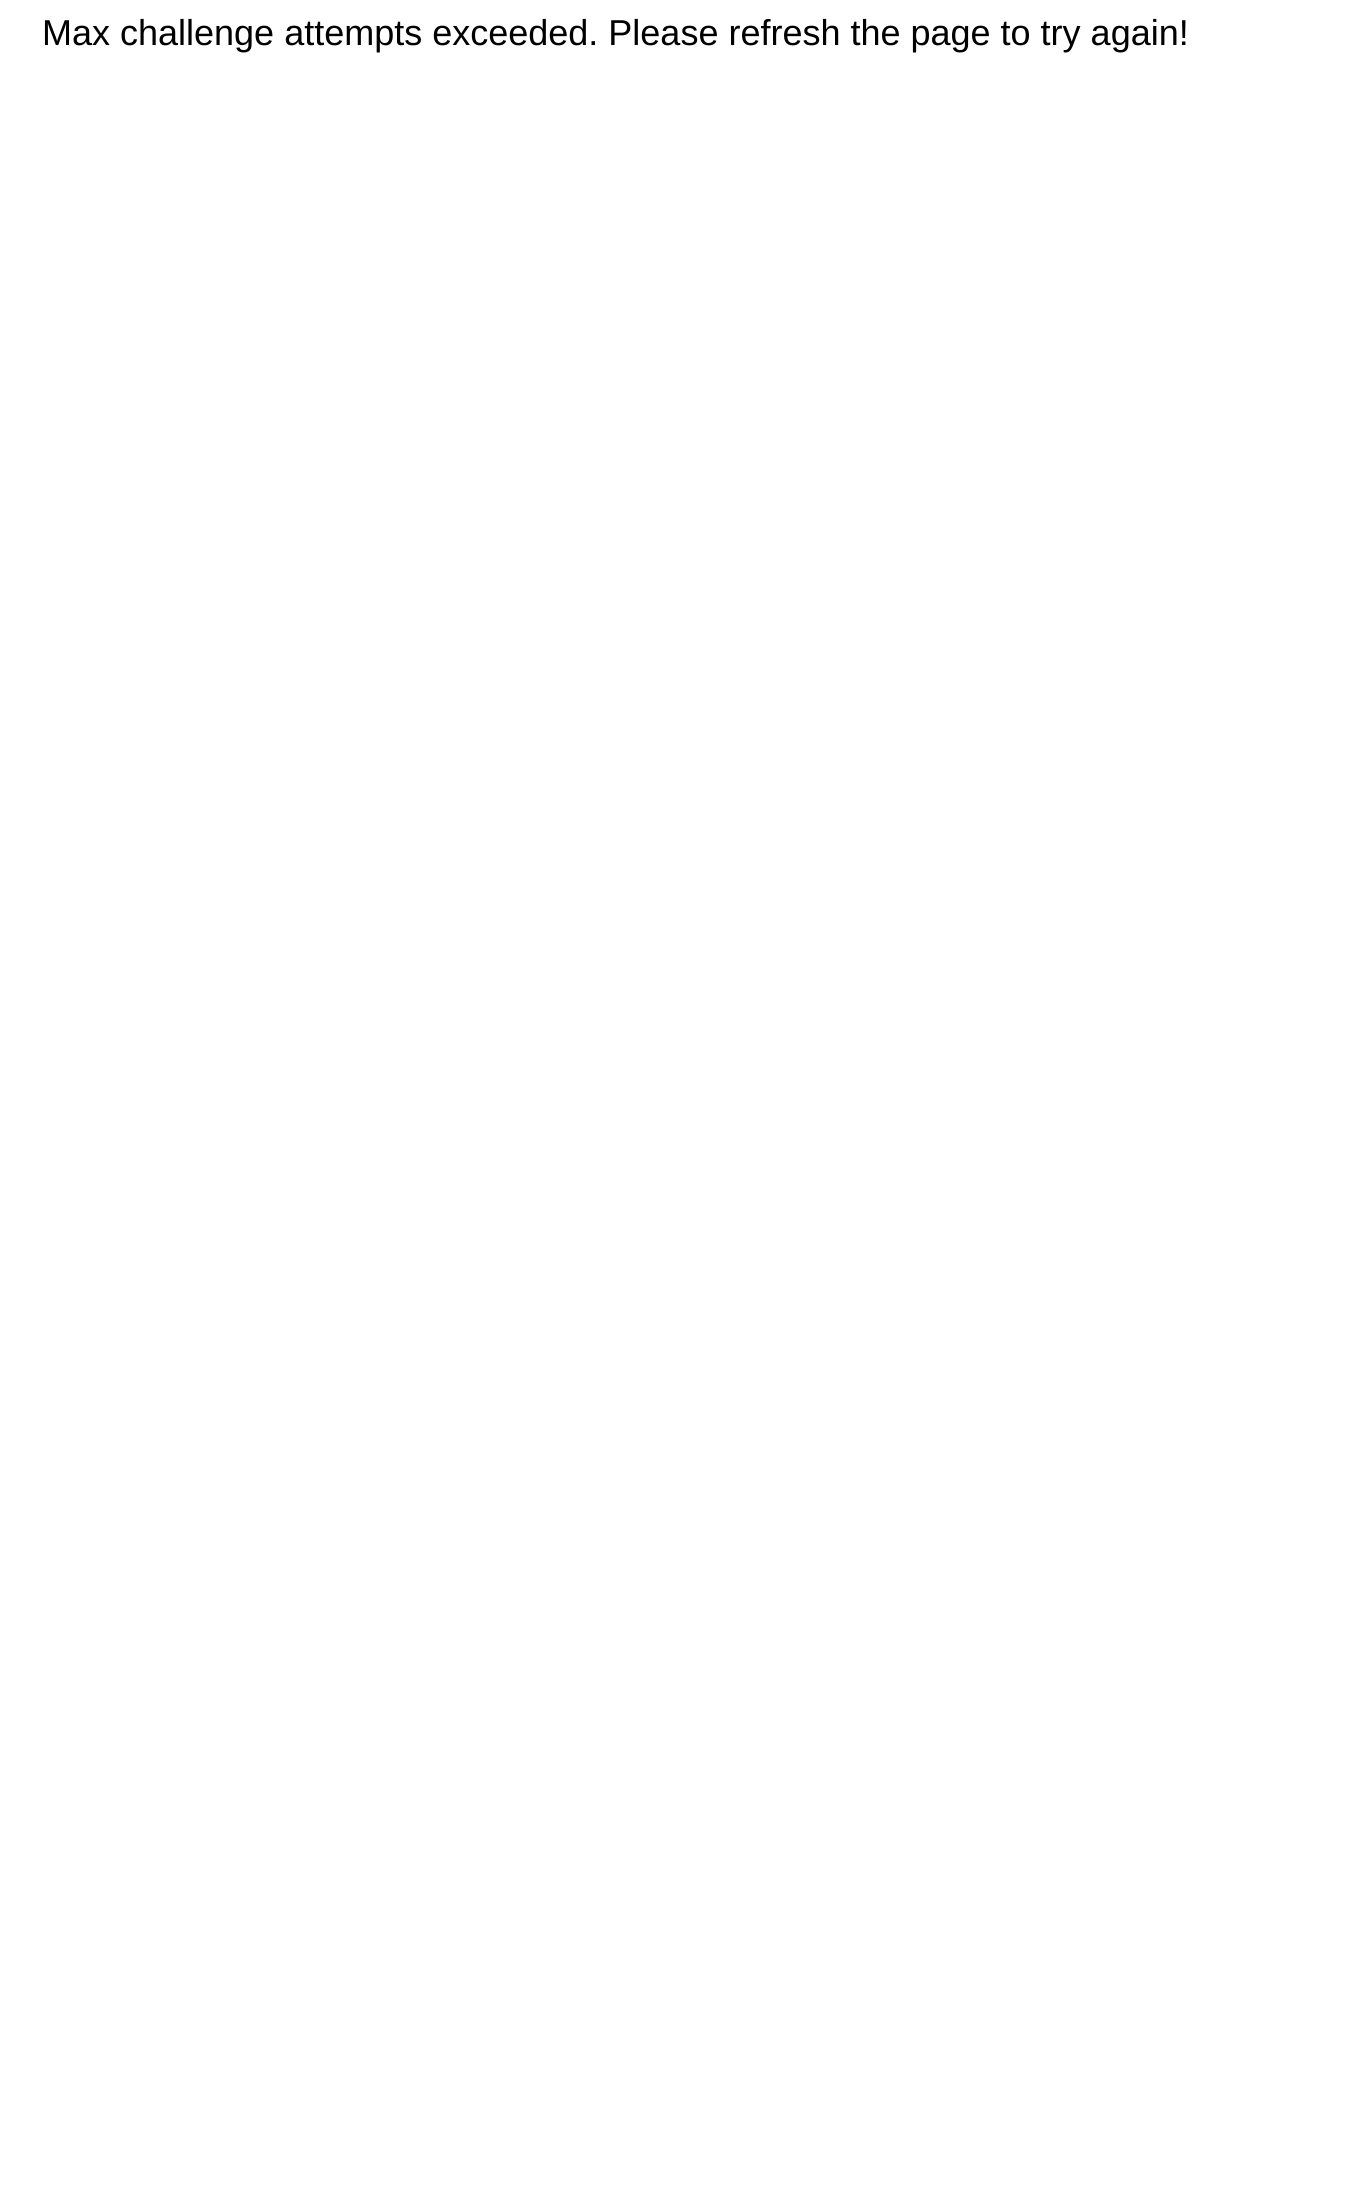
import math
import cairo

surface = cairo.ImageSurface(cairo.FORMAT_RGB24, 1365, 2192)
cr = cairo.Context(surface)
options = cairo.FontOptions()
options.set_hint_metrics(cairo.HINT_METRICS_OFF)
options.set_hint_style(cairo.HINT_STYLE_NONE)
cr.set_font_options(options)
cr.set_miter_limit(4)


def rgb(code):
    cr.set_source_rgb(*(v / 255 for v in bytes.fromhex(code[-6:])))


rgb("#ffffff")
cr.paint()
cr.select_font_face("Liberation Sans")
cr.set_font_size(36)
rgb("#000000")
cr.move_to(42, 45)
cr.show_text("Max challenge attempts exceeded. Please refresh the page to try again!")
surface.write_to_png("page.png")
